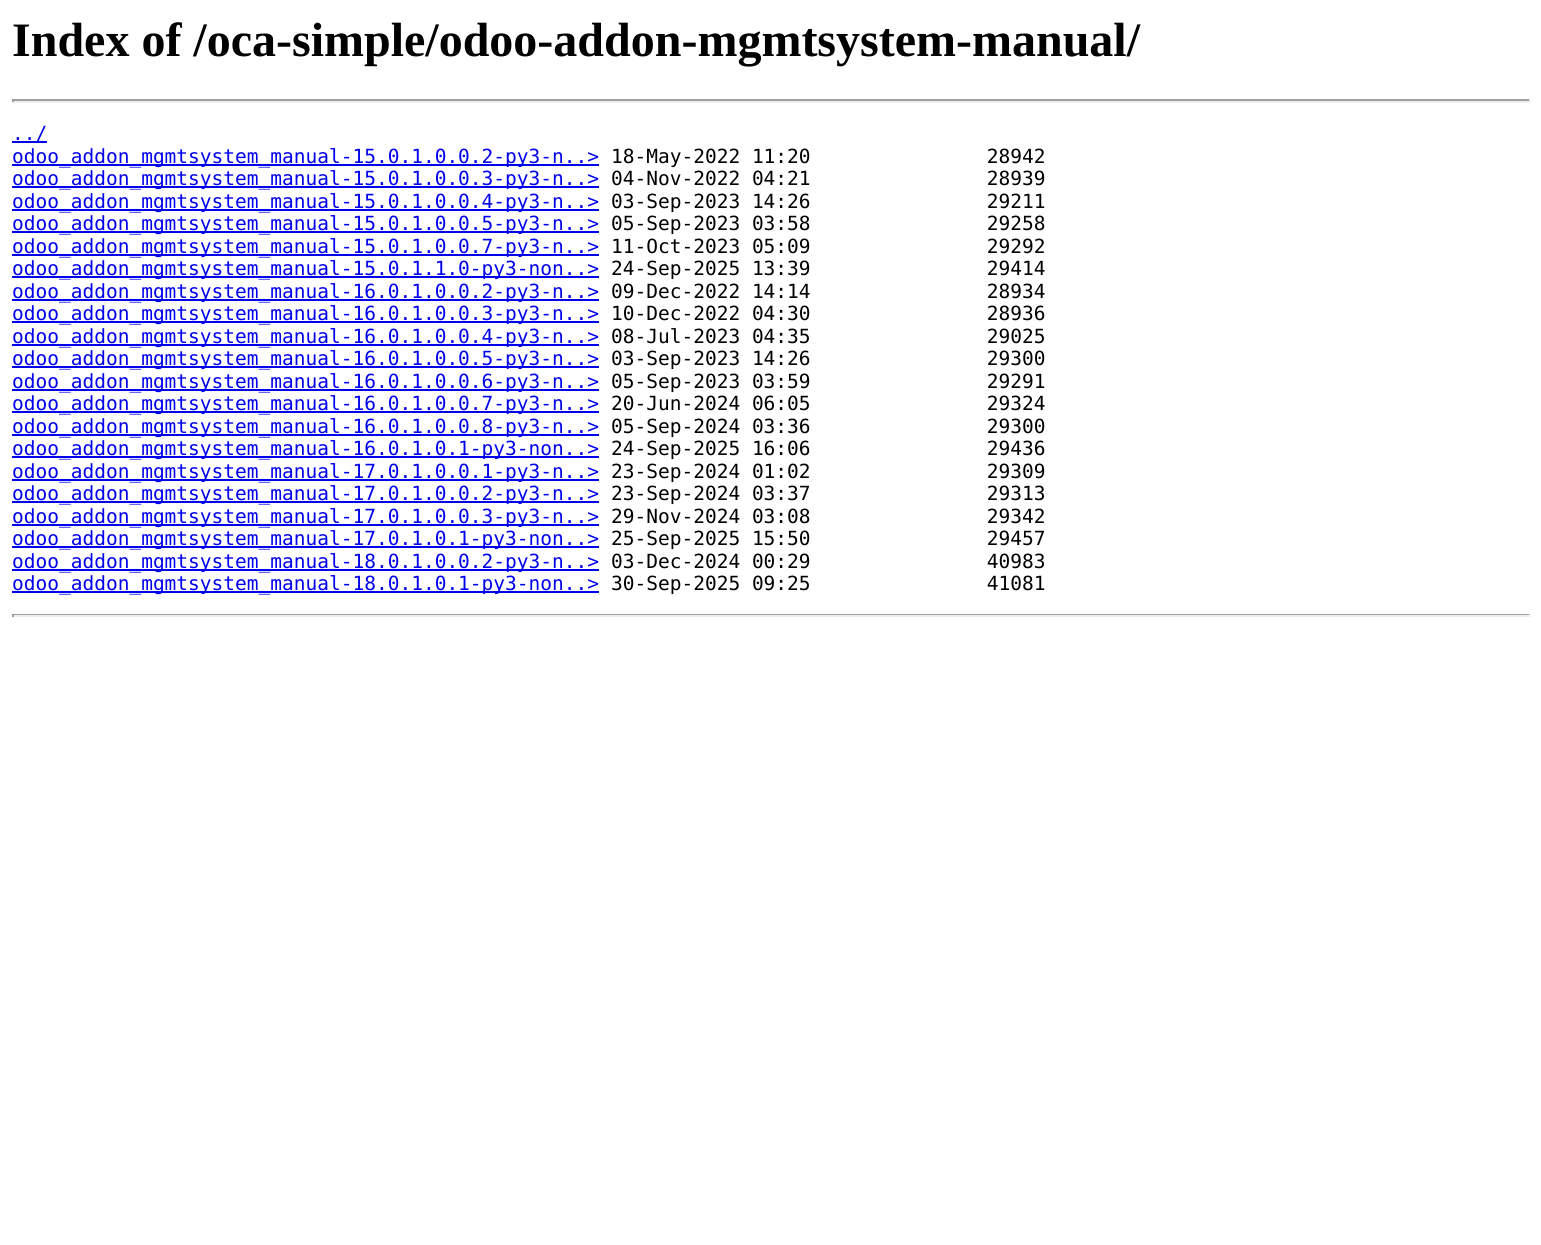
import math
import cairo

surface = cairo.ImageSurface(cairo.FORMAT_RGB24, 1541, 1245)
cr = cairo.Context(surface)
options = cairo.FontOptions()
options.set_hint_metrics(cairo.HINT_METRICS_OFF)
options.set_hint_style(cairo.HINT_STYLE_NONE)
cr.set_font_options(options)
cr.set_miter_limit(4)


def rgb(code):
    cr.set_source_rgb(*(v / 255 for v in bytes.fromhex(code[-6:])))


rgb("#ffffff")
cr.paint()
for x, y, w, h, color in [
    (12, 99, 1518, 2, "#9f9f9f"),
    (1529, 99, 2, 3, "#eeeeee"),
    (12, 101, 1518, 2, "#eeeeee"),
    (12, 99, 2, 3, "#9f9f9f"),
    (12, 141, 35, 2, "#0000ee"),
    (12, 164, 587, 2, "#0000ee"),
    (12, 186, 587, 2, "#0000ee"),
    (12, 209, 587, 2, "#0000ee"),
    (12, 231, 587, 2, "#0000ee"),
    (12, 254, 587, 2, "#0000ee"),
    (12, 276, 587, 2, "#0000ee"),
    (12, 299, 587, 2, "#0000ee"),
    (12, 321, 587, 2, "#0000ee"),
    (12, 344, 587, 2, "#0000ee"),
    (12, 366, 587, 2, "#0000ee"),
    (12, 389, 587, 2, "#0000ee"),
    (12, 411, 587, 2, "#0000ee"),
    (12, 434, 587, 2, "#0000ee"),
    (12, 456, 587, 2, "#0000ee"),
    (12, 479, 587, 2, "#0000ee"),
    (12, 501, 587, 2, "#0000ee"),
    (12, 524, 587, 2, "#0000ee"),
    (12, 546, 587, 2, "#0000ee"),
    (12, 569, 587, 2, "#0000ee"),
    (12, 591, 587, 2, "#0000ee"),
    (12, 614, 1518, 1, "#9f9f9f"),
    (1529, 614, 2, 3, "#eeeeee"),
    (12, 615, 1518, 2, "#eeeeee"),
    (12, 614, 2, 3, "#9f9f9f"),
]:
    rgb(color)
    cr.rectangle(x, y, w, h)
    cr.fill()
cr.select_font_face("Liberation Serif", cairo.FONT_SLANT_NORMAL, cairo.FONT_WEIGHT_BOLD)
cr.set_font_size(48)
rgb("#000000")
cr.move_to(12, 56)
cr.show_text("Index of /oca-simple/odoo-addon-mgmtsystem-manual/")
cr.select_font_face("DejaVu Sans Mono")
cr.set_font_size(19.5)
rgb("#0000ee")
cr.move_to(12, 140)
cr.show_text("../")
cr.move_to(12, 163)
cr.show_text("odoo_addon_mgmtsystem_manual-15.0.1.0.0.2-py3-n..>")
rgb("#000000")
cr.move_to(611, 163)
cr.show_text("18-May-2022 11:20               28942")
rgb("#0000ee")
cr.move_to(12, 185)
cr.show_text("odoo_addon_mgmtsystem_manual-15.0.1.0.0.3-py3-n..>")
rgb("#000000")
cr.move_to(611, 185)
cr.show_text("04-Nov-2022 04:21               28939")
rgb("#0000ee")
cr.move_to(12, 208)
cr.show_text("odoo_addon_mgmtsystem_manual-15.0.1.0.0.4-py3-n..>")
rgb("#000000")
cr.move_to(611, 208)
cr.show_text("03-Sep-2023 14:26               29211")
rgb("#0000ee")
cr.move_to(12, 230)
cr.show_text("odoo_addon_mgmtsystem_manual-15.0.1.0.0.5-py3-n..>")
rgb("#000000")
cr.move_to(611, 230)
cr.show_text("05-Sep-2023 03:58               29258")
rgb("#0000ee")
cr.move_to(12, 253)
cr.show_text("odoo_addon_mgmtsystem_manual-15.0.1.0.0.7-py3-n..>")
rgb("#000000")
cr.move_to(611, 253)
cr.show_text("11-Oct-2023 05:09               29292")
rgb("#0000ee")
cr.move_to(12, 275)
cr.show_text("odoo_addon_mgmtsystem_manual-15.0.1.1.0-py3-non..>")
rgb("#000000")
cr.move_to(611, 275)
cr.show_text("24-Sep-2025 13:39               29414")
rgb("#0000ee")
cr.move_to(12, 298)
cr.show_text("odoo_addon_mgmtsystem_manual-16.0.1.0.0.2-py3-n..>")
rgb("#000000")
cr.move_to(611, 298)
cr.show_text("09-Dec-2022 14:14               28934")
rgb("#0000ee")
cr.move_to(12, 320)
cr.show_text("odoo_addon_mgmtsystem_manual-16.0.1.0.0.3-py3-n..>")
rgb("#000000")
cr.move_to(611, 320)
cr.show_text("10-Dec-2022 04:30               28936")
rgb("#0000ee")
cr.move_to(12, 343)
cr.show_text("odoo_addon_mgmtsystem_manual-16.0.1.0.0.4-py3-n..>")
rgb("#000000")
cr.move_to(611, 343)
cr.show_text("08-Jul-2023 04:35               29025")
rgb("#0000ee")
cr.move_to(12, 365)
cr.show_text("odoo_addon_mgmtsystem_manual-16.0.1.0.0.5-py3-n..>")
rgb("#000000")
cr.move_to(611, 365)
cr.show_text("03-Sep-2023 14:26               29300")
rgb("#0000ee")
cr.move_to(12, 388)
cr.show_text("odoo_addon_mgmtsystem_manual-16.0.1.0.0.6-py3-n..>")
rgb("#000000")
cr.move_to(611, 388)
cr.show_text("05-Sep-2023 03:59               29291")
rgb("#0000ee")
cr.move_to(12, 410)
cr.show_text("odoo_addon_mgmtsystem_manual-16.0.1.0.0.7-py3-n..>")
rgb("#000000")
cr.move_to(611, 410)
cr.show_text("20-Jun-2024 06:05               29324")
rgb("#0000ee")
cr.move_to(12, 433)
cr.show_text("odoo_addon_mgmtsystem_manual-16.0.1.0.0.8-py3-n..>")
rgb("#000000")
cr.move_to(611, 433)
cr.show_text("05-Sep-2024 03:36               29300")
rgb("#0000ee")
cr.move_to(12, 455)
cr.show_text("odoo_addon_mgmtsystem_manual-16.0.1.0.1-py3-non..>")
rgb("#000000")
cr.move_to(611, 455)
cr.show_text("24-Sep-2025 16:06               29436")
rgb("#0000ee")
cr.move_to(12, 478)
cr.show_text("odoo_addon_mgmtsystem_manual-17.0.1.0.0.1-py3-n..>")
rgb("#000000")
cr.move_to(611, 478)
cr.show_text("23-Sep-2024 01:02               29309")
rgb("#0000ee")
cr.move_to(12, 500)
cr.show_text("odoo_addon_mgmtsystem_manual-17.0.1.0.0.2-py3-n..>")
rgb("#000000")
cr.move_to(611, 500)
cr.show_text("23-Sep-2024 03:37               29313")
rgb("#0000ee")
cr.move_to(12, 523)
cr.show_text("odoo_addon_mgmtsystem_manual-17.0.1.0.0.3-py3-n..>")
rgb("#000000")
cr.move_to(611, 523)
cr.show_text("29-Nov-2024 03:08               29342")
rgb("#0000ee")
cr.move_to(12, 545)
cr.show_text("odoo_addon_mgmtsystem_manual-17.0.1.0.1-py3-non..>")
rgb("#000000")
cr.move_to(611, 545)
cr.show_text("25-Sep-2025 15:50               29457")
rgb("#0000ee")
cr.move_to(12, 568)
cr.show_text("odoo_addon_mgmtsystem_manual-18.0.1.0.0.2-py3-n..>")
rgb("#000000")
cr.move_to(611, 568)
cr.show_text("03-Dec-2024 00:29               40983")
rgb("#0000ee")
cr.move_to(12, 590)
cr.show_text("odoo_addon_mgmtsystem_manual-18.0.1.0.1-py3-non..>")
rgb("#000000")
cr.move_to(611, 590)
cr.show_text("30-Sep-2025 09:25               41081")
surface.write_to_png("page.png")
